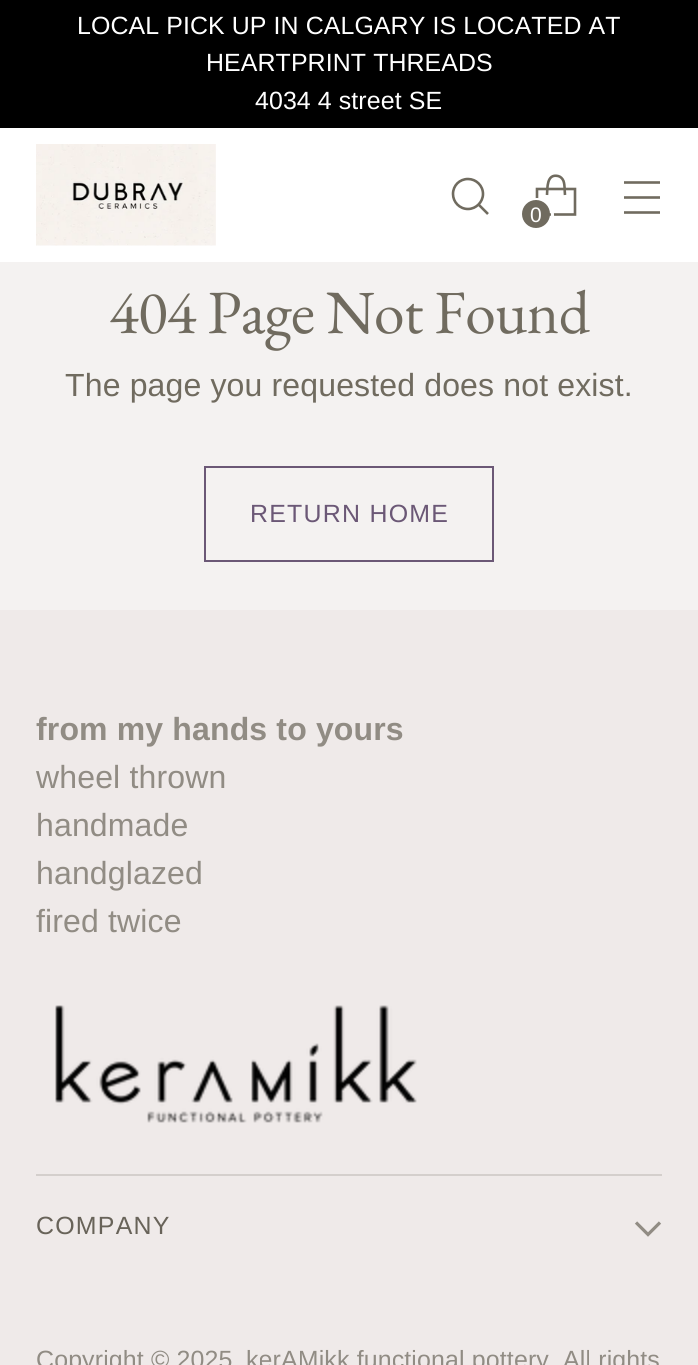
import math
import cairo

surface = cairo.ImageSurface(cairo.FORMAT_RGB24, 698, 1365)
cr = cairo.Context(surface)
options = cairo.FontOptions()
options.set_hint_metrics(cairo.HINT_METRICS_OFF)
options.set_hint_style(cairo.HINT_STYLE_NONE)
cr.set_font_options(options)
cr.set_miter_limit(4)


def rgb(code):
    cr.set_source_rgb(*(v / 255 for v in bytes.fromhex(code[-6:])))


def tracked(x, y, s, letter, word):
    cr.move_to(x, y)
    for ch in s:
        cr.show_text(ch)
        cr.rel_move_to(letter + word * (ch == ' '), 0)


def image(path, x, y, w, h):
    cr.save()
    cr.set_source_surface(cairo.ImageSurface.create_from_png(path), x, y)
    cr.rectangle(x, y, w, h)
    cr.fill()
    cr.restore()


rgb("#f4f2f1")
cr.paint()
rgb("#000000")
cr.rectangle(0, 0, 698, 128)
cr.fill()
rgb("#ffffff")
cr.rectangle(0, 128, 698, 134)
cr.fill()
image("img/1.png", 36, 144, 180, 102)
cr.new_path()
cr.move_to(468, 209)
cr.curve_to(476, 209, 483, 202, 483, 194)
cr.curve_to(483, 185.5, 476, 179, 468, 179)
cr.curve_to(459.5, 179, 453, 185.5, 453, 194)
cr.curve_to(453, 202, 459.5, 209, 468, 209)
cr.close_path()
rgb("#706b5f")
cr.set_line_width(2.6)
cr.set_line_cap(cairo.LINE_CAP_ROUND)
cr.stroke()
cr.new_path()
cr.move_to(478.5, 204.5)
cr.line_to(488, 214)
cr.set_line_cap(cairo.LINE_CAP_BUTT)
cr.stroke()
cr.new_path()
cr.move_to(565, 195)
cr.curve_to(564.5, 190.5, 565, 185.5, 563.5, 181)
cr.curve_to(562.5, 178.5, 560.5, 176.5, 558, 176)
cr.curve_to(546.5, 173.5, 547.5, 188, 547, 195)
cr.set_line_join(cairo.LINE_JOIN_BEVEL)
cr.stroke()
cr.new_path()
cr.move_to(575, 214.5)
cr.line_to(575, 189)
cr.line_to(537, 189)
cr.line_to(537, 214.5)
cr.close_path()
cr.set_line_join(cairo.LINE_JOIN_MITER)
cr.stroke()
cr.arc(537, 215, 15.5, 0, 2 * math.pi)
rgb("#ffffff")
cr.set_line_width(3)
cr.stroke()
rgb("#706b5f")
cr.arc(536, 214, 14, 0, 2 * math.pi)
cr.fill()
cr.new_path()
cr.move_to(624, 197.5)
cr.line_to(660, 197.5)
cr.move_to(624, 182.5)
cr.line_to(660, 182.5)
cr.move_to(624, 212.5)
cr.line_to(660, 212.5)
cr.set_line_width(2.6)
cr.stroke()
cr.rectangle(205, 467, 288, 94)
rgb("#6b5876")
cr.set_line_width(2)
cr.stroke()
rgb("#efeae9")
cr.rectangle(0, 610, 698, 755)
cr.fill()
rgb("#d4cfcc")
cr.rectangle(36, 1174, 626, 2)
cr.fill()
image("img/2.png", 55, 1005, 362, 118)
cr.new_path()
cr.move_to(636, 1222.5)
cr.line_to(648, 1234.5)
cr.line_to(660, 1222.5)
rgb("#918c84")
cr.set_line_width(3.2)
cr.stroke()
cr.select_font_face("Arimo")
cr.set_font_size(24.9)
rgb("#ffffff")
for x, y, s in [
    (77, 34, "LOCAL PICK UP IN CALGARY IS LOCATED AT"),
    (206, 71, "HEARTPRINT THREADS"),
    (255, 109, "4034 4 street SE"),
]:
    tracked(x, y, s, 0.1, 0)
cr.set_font_size(21)
tracked(530, 222, "0", 0.15, 0)
cr.select_font_face("EB Garamond")
cr.set_font_size(61.5)
rgb("#706b5f")
tracked(109, 333, "404 Page Not Found", -0.6, 0)
cr.select_font_face("Arimo")
cr.set_font_size(32)
tracked(65, 396, "The page you requested does not exist.", 0.15, 0)
cr.set_font_size(24.9)
rgb("#6b5876")
tracked(250, 522, "RETURN HOME", 1.25, 0)
cr.select_font_face("Arimo", cairo.FONT_SLANT_NORMAL, cairo.FONT_WEIGHT_BOLD)
cr.set_font_size(32)
rgb("#918c84")
tracked(36, 740, "from my hands to yours", 0.15, 0)
cr.select_font_face("Arimo")
for x, y, s in [
    (36, 788, "wheel thrown"),
    (36, 836, "handmade"),
    (36, 884, "handglazed"),
    (36, 932, "fired twice"),
]:
    tracked(x, y, s, 0.15, 0)
cr.set_font_size(24.9)
rgb("#686359")
tracked(36, 1234, "COMPANY", 1.25, 0)
rgb("#918c84")
for x, y, s in [
    (36, 1368, "Copyright © 2025"),
    (246, 1368, "kerAMikk functional pottery"),
    (563, 1368, "All rights"),
]:
    tracked(x, y, s, 0.15, 0)
surface.write_to_png("page.png")
